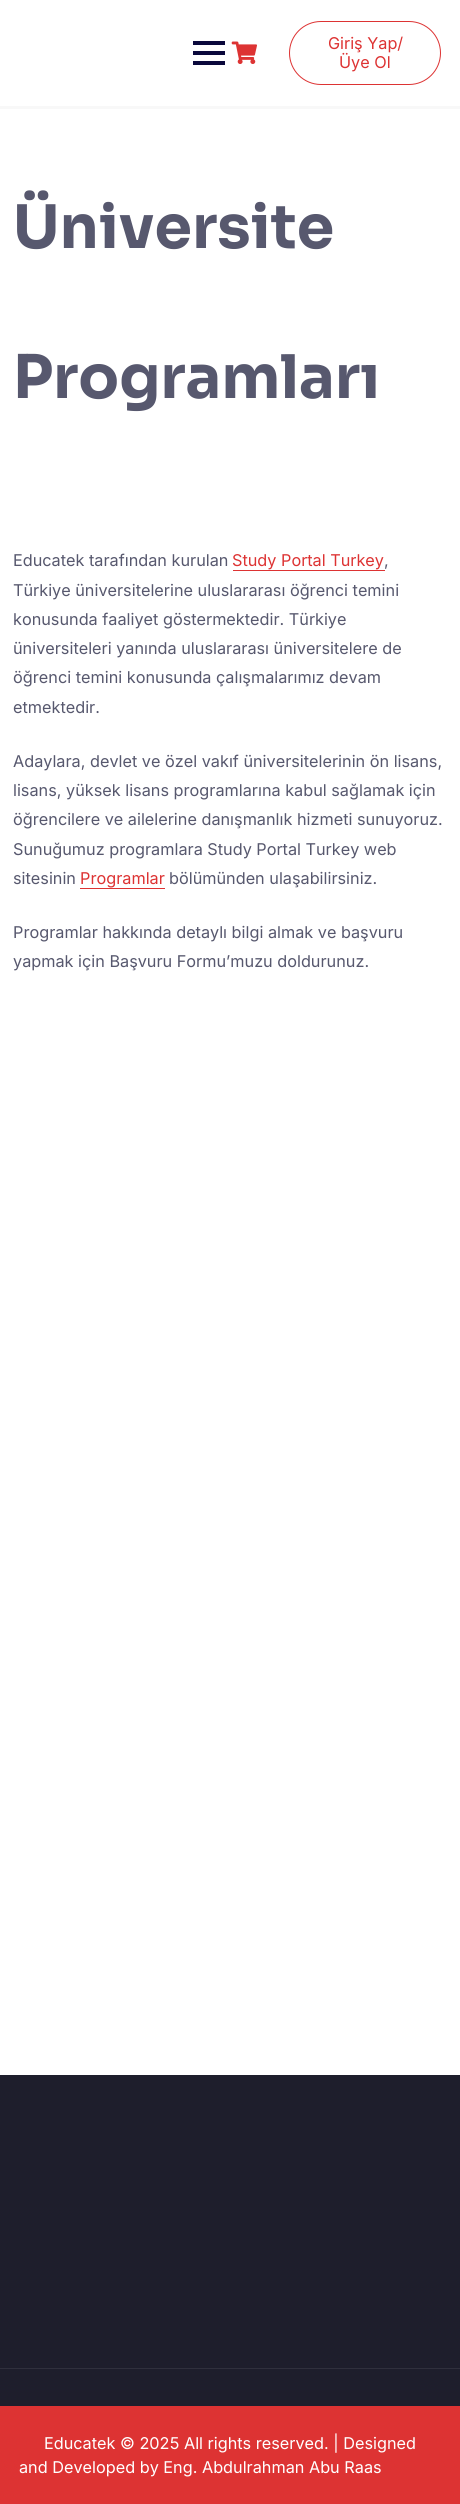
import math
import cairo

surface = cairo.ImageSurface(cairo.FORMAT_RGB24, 460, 2504)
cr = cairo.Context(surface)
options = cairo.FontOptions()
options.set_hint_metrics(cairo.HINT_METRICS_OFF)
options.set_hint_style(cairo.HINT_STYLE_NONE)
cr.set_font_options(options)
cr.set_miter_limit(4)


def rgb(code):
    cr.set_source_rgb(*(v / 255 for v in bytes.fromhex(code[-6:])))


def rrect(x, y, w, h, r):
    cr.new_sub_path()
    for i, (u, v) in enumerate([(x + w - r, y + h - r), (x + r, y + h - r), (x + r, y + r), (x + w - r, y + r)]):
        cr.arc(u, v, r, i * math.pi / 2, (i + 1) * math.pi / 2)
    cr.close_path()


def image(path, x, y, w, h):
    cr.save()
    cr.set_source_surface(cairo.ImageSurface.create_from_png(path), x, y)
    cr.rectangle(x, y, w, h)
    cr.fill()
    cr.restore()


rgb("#ffffff")
cr.paint()
for x, y, w, h, color in [
    (0, 106, 460, 3, "#f8f8f8"),
    (193, 51, 32, 4, "#0a083b"),
    (193, 41, 32, 4, "#0a083b"),
    (193, 61, 32, 4, "#0a083b"),
]:
    rgb(color)
    cr.rectangle(x, y, w, h)
    cr.fill()
image("img/1.png", 231, 41, 26, 23)
rrect(289.5, 21.5, 151, 63, 31.5)
rgb("#dd3333")
cr.set_line_width(1)
cr.stroke()
for x, y, w, h, color in [
    (233, 570, 152, 1, "#dd3333"),
    (80, 888, 85, 1, "#dd3333"),
    (0, 2075, 460, 331, "#1e1e2c"),
    (0, 2368, 460, 1, "#30303d"),
    (0, 2406, 460, 98, "#dd3333"),
]:
    rgb(color)
    cr.rectangle(x, y, w, h)
    cr.fill()
cr.select_font_face("Inter")
cr.set_font_size(16.25)
cr.move_to(328, 49)
cr.show_text("Giriş Yap/")
cr.move_to(339, 68)
cr.show_text("Üye Ol")
cr.select_font_face("Sora", cairo.FONT_SLANT_NORMAL, cairo.FONT_WEIGHT_BOLD)
cr.set_font_size(60)
rgb("#57586e")
cr.move_to(13, 248)
cr.show_text("Üniversite")
cr.move_to(13, 398)
cr.show_text("Programları")
cr.select_font_face("Inter")
cr.set_font_size(16.25)
cr.move_to(13, 566)
cr.show_text("Educatek tarafından kurulan")
rgb("#dd3333")
cr.move_to(232, 566)
cr.show_text("Study Portal Turkey")
rgb("#57586e")
for x, y, s in [
    (384, 566, ","),
    (13, 596, "Türkiye üniversitelerine uluslararası öğrenci temini"),
    (13, 625, "konusunda faaliyet göstermektedir. Türkiye"),
    (13, 654, "üniversiteleri yanında uluslararası üniversitelere de"),
    (13, 683, "öğrenci temini konusunda çalışmalarımız devam"),
    (13, 713, "etmektedir."),
    (13, 767, "Adaylara, devlet ve özel vakıf üniversitelerinin ön lisans,"),
    (13, 796, "lisans, yüksek lisans programlarına kabul sağlamak için"),
    (13, 825, "öğrencilere ve ailelerine danışmanlık hizmeti sunuyoruz."),
    (13, 855, "Sunuğumuz programlara Study Portal Turkey web"),
    (13, 884, "sitesinin"),
]:
    cr.move_to(x, y)
    cr.show_text(s)
rgb("#dd3333")
cr.move_to(80, 884)
cr.show_text("Programlar")
rgb("#57586e")
for x, y, s in [
    (169, 884, "bölümünden ulaşabilirsiniz."),
    (13, 938, "Programlar hakkında detaylı bilgi almak ve başvuru"),
    (13, 967, "yapmak için Başvuru Formu’muzu doldurunuz."),
]:
    cr.move_to(x, y)
    cr.show_text(s)
rgb("#ffffff")
cr.move_to(44, 2449)
cr.show_text("Educatek © 2025 All rights reserved. | Designed")
cr.move_to(19, 2473)
cr.show_text("and Developed by Eng. Abdulrahman Abu Raas")
surface.write_to_png("page.png")
